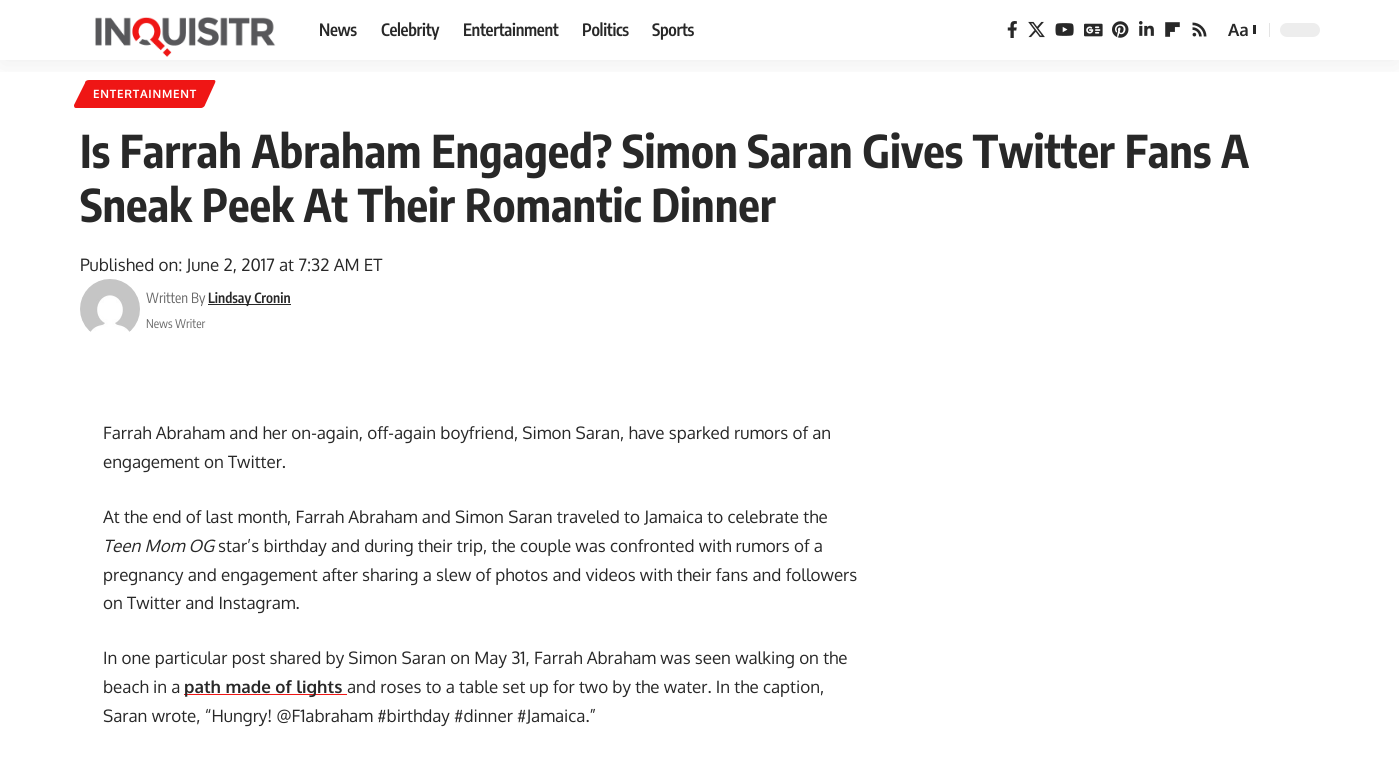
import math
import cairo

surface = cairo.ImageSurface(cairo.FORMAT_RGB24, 1399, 765)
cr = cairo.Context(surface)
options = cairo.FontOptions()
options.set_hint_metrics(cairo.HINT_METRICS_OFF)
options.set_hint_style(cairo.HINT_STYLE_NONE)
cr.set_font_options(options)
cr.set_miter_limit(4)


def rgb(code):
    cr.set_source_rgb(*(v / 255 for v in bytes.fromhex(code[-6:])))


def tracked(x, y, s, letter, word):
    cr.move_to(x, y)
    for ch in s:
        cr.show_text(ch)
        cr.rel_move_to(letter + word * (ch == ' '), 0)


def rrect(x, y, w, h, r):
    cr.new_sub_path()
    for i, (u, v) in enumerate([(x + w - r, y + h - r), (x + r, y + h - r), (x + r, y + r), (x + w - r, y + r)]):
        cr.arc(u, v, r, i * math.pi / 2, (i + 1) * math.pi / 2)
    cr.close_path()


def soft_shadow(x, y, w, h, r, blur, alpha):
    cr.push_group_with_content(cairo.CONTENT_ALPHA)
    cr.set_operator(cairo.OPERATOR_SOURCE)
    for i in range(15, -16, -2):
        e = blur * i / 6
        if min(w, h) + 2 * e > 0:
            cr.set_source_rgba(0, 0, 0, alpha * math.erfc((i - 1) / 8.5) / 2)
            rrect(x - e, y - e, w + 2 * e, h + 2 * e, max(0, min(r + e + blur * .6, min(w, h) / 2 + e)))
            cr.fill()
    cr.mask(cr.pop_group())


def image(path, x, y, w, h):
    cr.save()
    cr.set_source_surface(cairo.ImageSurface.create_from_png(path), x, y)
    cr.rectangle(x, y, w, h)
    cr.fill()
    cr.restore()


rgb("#ffffff")
cr.paint()
rgb("#ef1615")
cr.new_path()
cr.move_to(89, 80)
cr.line_to(214, 80)
cr.curve_to(215, 80, 216, 81, 215, 83)
cr.line_to(205, 105)
cr.curve_to(205, 106, 203, 108, 201, 108)
cr.line_to(76, 108)
cr.curve_to(74, 108, 74, 106, 74, 105)
cr.line_to(85, 83)
cr.curve_to(85, 81, 87, 80, 89, 80)
cr.close_path()
cr.fill()
cr.save()
cr.rectangle(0, 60, 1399, 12)
cr.clip()
rgb("#000000")
soft_shadow(0, 4, 1399, 60, 0, 15, 0.07)
cr.restore()
image("img/1.png", 95, 17, 181, 40)
image("img/2.png", 1007, 21, 10, 17)
image("img/3.png", 1028, 21, 17, 17)
image("img/4.png", 1055, 23, 19, 13)
image("img/5.png", 1084, 23, 19, 14)
image("img/6.png", 1112, 21, 17, 17)
image("img/7.png", 1139, 21, 15, 15)
image("img/8.png", 1165, 22, 15, 15)
image("img/9.png", 1192, 22, 15, 15)
rgb("#282828")
cr.rectangle(1253, 25, 3, 9)
cr.fill()
rgb("#e4e4e4")
cr.rectangle(1269, 23, 1, 14)
cr.fill()
rgb("#ededed")
rrect(1280, 23, 40, 14, 7)
cr.fill()
image("img/10.png", 80, 279, 60, 53)
rgb("#282828")
cr.rectangle(208, 304, 83, 1)
cr.fill()
rgb("#ef1615")
cr.rectangle(184, 694, 163, 1)
cr.fill()
cr.select_font_face("Encode Sans Condensed SemiBold")
cr.set_font_size(17)
rgb("#282828")
for x, y, s in [
    (319, 36, "News"),
    (381, 36, "Celebrity"),
    (463, 36, "Entertainment"),
    (582, 36, "Politics"),
    (652, 36, "Sports"),
]:
    tracked(x, y, s, -0.3, 0)
cr.select_font_face("Oxygen", cairo.FONT_SLANT_NORMAL, cairo.FONT_WEIGHT_BOLD)
cr.move_to(1228, 36)
cr.show_text("Aa")
cr.set_font_size(11.5)
rgb("#ffffff")
tracked(93, 98, "ENTERTAINMENT", 0.75, 0)
cr.select_font_face("Encode Sans Condensed", cairo.FONT_SLANT_NORMAL, cairo.FONT_WEIGHT_BOLD)
cr.set_font_size(45)
rgb("#282828")
cr.move_to(80, 168)
cr.show_text("Is Farrah Abraham Engaged? Simon Saran Gives Twitter Fans A")
cr.move_to(80, 222)
cr.show_text("Sneak Peek At Their Romantic Dinner")
cr.select_font_face("Oxygen")
cr.set_font_size(17)
cr.move_to(80, 271)
cr.show_text("Published on: June 2, 2017 at 7:32 AM ET")
cr.select_font_face("Encode Sans Condensed")
cr.set_font_size(14)
rgb("#666666")
cr.move_to(146, 303)
cr.show_text("Written By")
cr.select_font_face("Encode Sans Condensed SemiBold")
rgb("#282828")
cr.move_to(208, 303)
cr.show_text("Lindsay Cronin")
cr.select_font_face("Encode Sans Condensed")
cr.set_font_size(12)
rgb("#666666")
cr.move_to(146, 328)
cr.show_text("News Writer")
cr.select_font_face("Oxygen")
cr.set_font_size(17)
rgb("#282828")
for x, y, s in [
    (103, 439, "Farrah Abraham and her on-again, off-again boyfriend, Simon Saran, have sparked rumors of an"),
    (103, 468, "engagement on Twitter."),
    (103, 523, "At the end of last month, Farrah Abraham and Simon Saran traveled to Jamaica to celebrate the"),
]:
    cr.move_to(x, y)
    cr.show_text(s)
cr.select_font_face("Oxygen", cairo.FONT_SLANT_ITALIC)
cr.move_to(103, 552)
cr.show_text("Teen Mom OG")
cr.select_font_face("Oxygen")
for x, y, s in [
    (218, 552, "star’s birthday and during their trip, the couple was confronted with rumors of a"),
    (103, 581, "pregnancy and engagement after sharing a slew of photos and videos with their fans and followers"),
    (103, 609, "on Twitter and Instagram."),
    (103, 664, "In one particular post shared by Simon Saran on May 31, Farrah Abraham was seen walking on the"),
    (103, 693, "beach in a"),
]:
    cr.move_to(x, y)
    cr.show_text(s)
cr.select_font_face("Oxygen", cairo.FONT_SLANT_NORMAL, cairo.FONT_WEIGHT_BOLD)
cr.move_to(184, 693)
cr.show_text("path made of lights")
cr.select_font_face("Oxygen")
cr.move_to(347, 693)
cr.show_text("and roses to a table set up for two by the water. In the caption,")
cr.move_to(103, 722)
cr.show_text("Saran wrote, “Hungry! @F1abraham #birthday #dinner #Jamaica.”")
surface.write_to_png("page.png")
